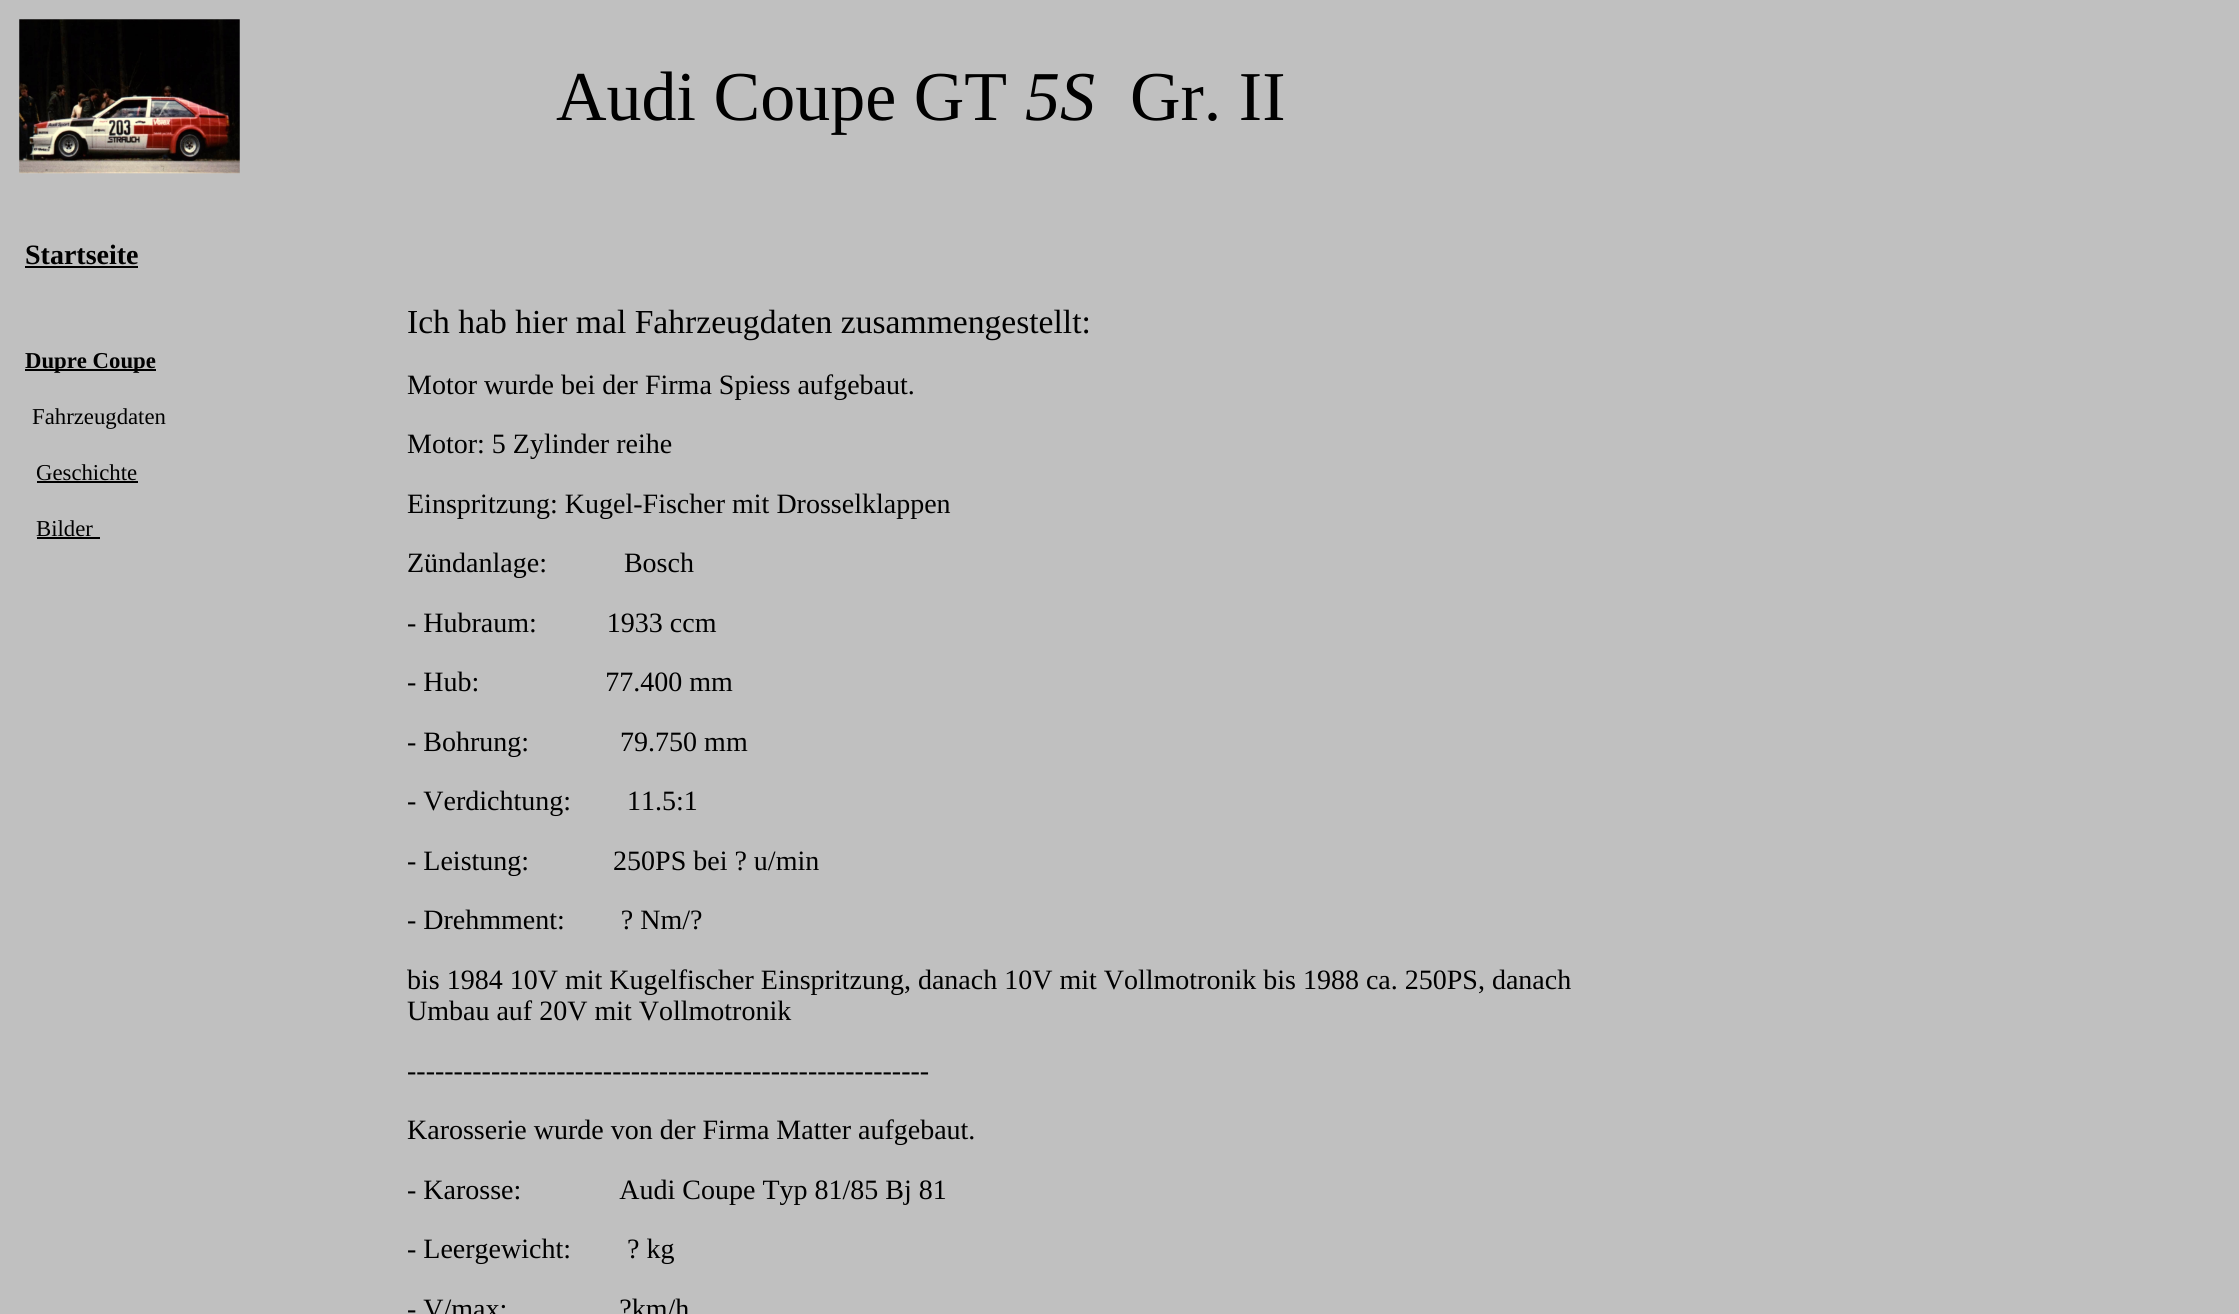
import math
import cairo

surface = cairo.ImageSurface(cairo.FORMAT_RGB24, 2239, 1314)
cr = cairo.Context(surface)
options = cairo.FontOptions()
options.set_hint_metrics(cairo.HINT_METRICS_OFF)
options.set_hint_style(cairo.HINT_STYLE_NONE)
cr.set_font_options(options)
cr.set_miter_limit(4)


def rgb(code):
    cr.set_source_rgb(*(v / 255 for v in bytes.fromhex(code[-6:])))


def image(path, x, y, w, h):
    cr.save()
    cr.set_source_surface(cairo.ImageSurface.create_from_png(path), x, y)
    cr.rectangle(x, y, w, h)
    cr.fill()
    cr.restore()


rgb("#c0c0c0")
cr.paint()
image("img/1.png", 19, 19, 221, 155)
for x, y, w, h, color in [
    (25, 266, 113, 2, "#000000"),
    (25, 369, 131, 2, "#000000"),
    (37, 481, 101, 2, "#000000"),
    (37, 537, 63, 2, "#000000"),
]:
    rgb(color)
    cr.rectangle(x, y, w, h)
    cr.fill()
cr.select_font_face("Liberation Serif")
cr.set_font_size(70)
cr.move_to(556, 120)
cr.show_text("Audi Coupe GT")
cr.select_font_face("Liberation Serif", cairo.FONT_SLANT_ITALIC)
cr.move_to(1025, 120)
cr.show_text("5S")
cr.select_font_face("Liberation Serif")
cr.move_to(1130, 120)
cr.show_text("Gr. II")
cr.select_font_face("Liberation Serif", cairo.FONT_SLANT_NORMAL, cairo.FONT_WEIGHT_BOLD)
cr.set_font_size(28)
cr.move_to(25, 264)
cr.show_text("Startseite")
cr.set_font_size(22.75)
cr.move_to(25, 368)
cr.show_text("Dupre Coupe")
cr.select_font_face("Liberation Serif")
for x, y, s in [
    (32, 424, "Fahrzeugdaten"),
    (36, 480, "Geschichte"),
    (36, 536, "Bilder"),
]:
    cr.move_to(x, y)
    cr.show_text(s)
cr.set_font_size(33.6)
cr.move_to(407, 333)
cr.show_text("Ich hab hier mal Fahrzeugdaten zusammengestellt:")
cr.set_font_size(28)
for x, y, s in [
    (407, 394, "Motor wurde bei der Firma Spiess aufgebaut."),
    (407, 453, "Motor: 5 Zylinder reihe"),
    (407, 513, "Einspritzung: Kugel-Fischer mit Drosselklappen"),
    (407, 572, "Zündanlage:           Bosch"),
    (407, 632, "- Hubraum:          1933 ccm"),
    (407, 691, "- Hub:                  77.400 mm"),
    (407, 751, "- Bohrung:             79.750 mm"),
    (407, 810, "- Verdichtung:        11.5:1"),
    (407, 870, "- Leistung:            250PS bei ? u/min"),
    (407, 929, "- Drehmment:        ? Nm/?"),
    (407, 989, "bis 1984 10V mit Kugelfischer Einspritzung, danach 10V mit Vollmotronik bis 1988 ca. 250PS, danach"),
    (407, 1020, "Umbau auf 20V mit Vollmotronik"),
    (407, 1080, "--------------------------------------------------------"),
    (407, 1139, "Karosserie wurde von der Firma Matter aufgebaut."),
    (407, 1199, "- Karosse:              Audi Coupe Typ 81/85 Bj 81"),
    (407, 1258, "- Leergewicht:        ? kg"),
    (407, 1318, "- V/max:                ?km/h"),
]:
    cr.move_to(x, y)
    cr.show_text(s)
surface.write_to_png("page.png")
